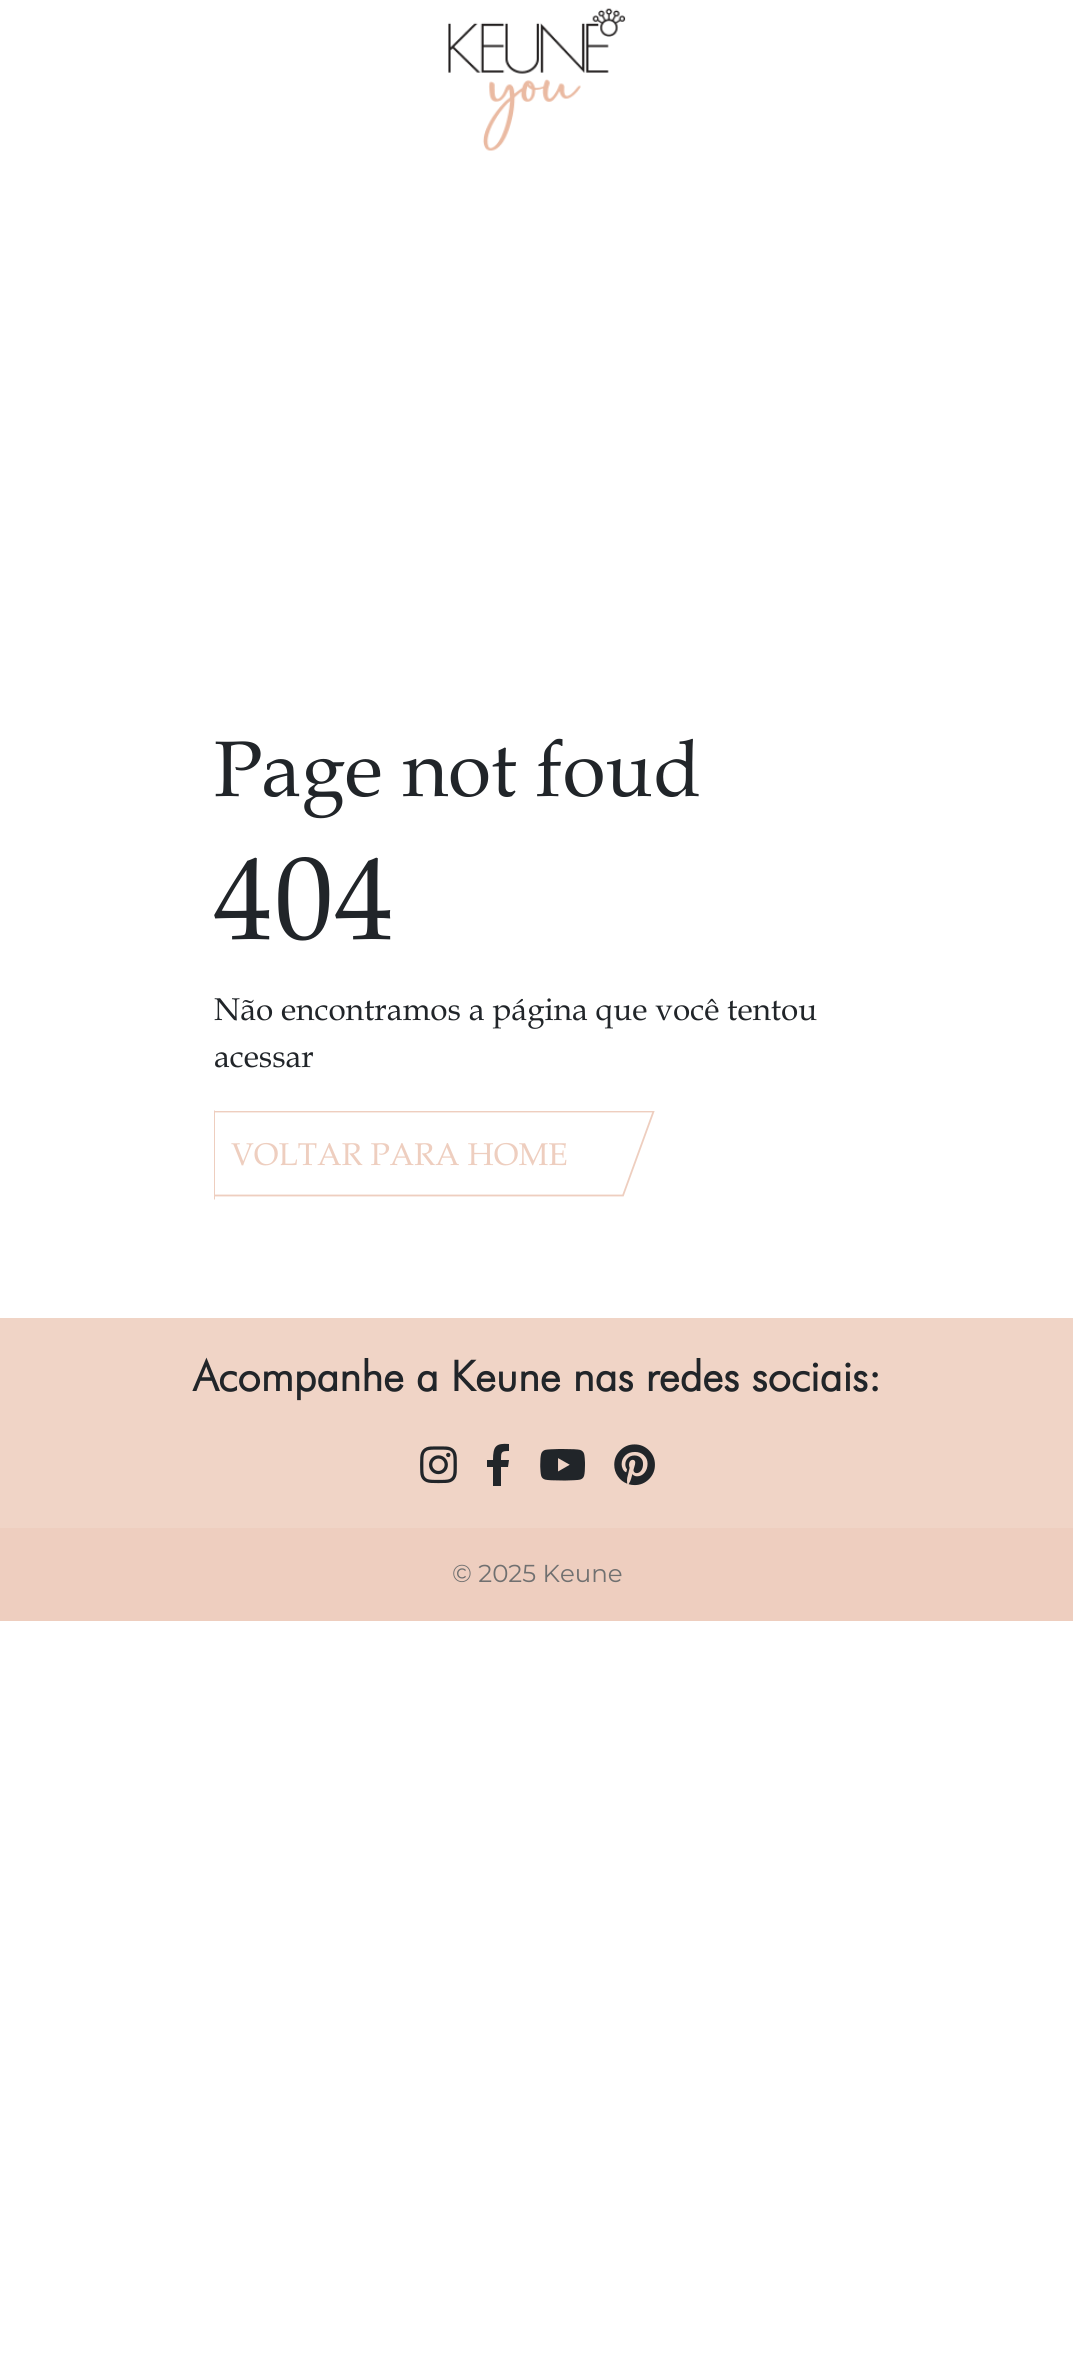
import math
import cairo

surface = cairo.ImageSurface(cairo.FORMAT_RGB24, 1073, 2359)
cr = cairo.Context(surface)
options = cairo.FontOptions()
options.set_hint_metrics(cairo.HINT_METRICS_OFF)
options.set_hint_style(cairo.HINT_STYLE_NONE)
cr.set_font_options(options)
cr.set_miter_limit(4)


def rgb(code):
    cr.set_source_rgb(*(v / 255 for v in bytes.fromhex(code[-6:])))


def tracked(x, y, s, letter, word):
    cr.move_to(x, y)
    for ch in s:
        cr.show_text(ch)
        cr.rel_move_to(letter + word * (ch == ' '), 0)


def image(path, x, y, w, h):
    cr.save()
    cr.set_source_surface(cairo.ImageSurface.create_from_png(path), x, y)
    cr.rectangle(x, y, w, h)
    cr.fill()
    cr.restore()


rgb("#ffffff")
cr.paint()
image("img/1.png", 448, 8, 178, 143)
rgb("#eecebf")
cr.new_path()
cr.move_to(214, 1200)
cr.line_to(214, 1110)
cr.line_to(215, 1111)
cr.line_to(215, 1199)
cr.close_path()
cr.fill()
cr.save()
cr.rectangle(215, 1111, 459, 88)
cr.clip()
cr.new_path()
cr.move_to(166.5, 1111.5)
cr.line_to(653.5, 1111.5)
cr.line_to(623, 1195.5)
cr.line_to(136, 1195.5)
cr.close_path()
cr.set_line_width(1.8)
cr.stroke()
cr.restore()
rgb("#f0d4c6")
cr.rectangle(0, 1318, 1073, 210)
cr.fill()
image("img/2.png", 420, 1446, 37, 38)
rgb("#212529")
cr.new_path()
cr.move_to(508, 1467)
cr.line_to(501, 1467)
cr.line_to(501, 1486)
cr.line_to(493, 1486)
cr.line_to(493, 1467)
cr.line_to(487, 1467)
cr.line_to(487, 1460)
cr.line_to(493, 1460)
cr.curve_to(493, 1446, 496, 1443, 509, 1444)
cr.line_to(509, 1451)
cr.curve_to(501, 1451, 501, 1452, 501, 1460)
cr.line_to(509, 1460)
cr.close_path()
cr.fill()
image("img/3.png", 540, 1449, 45, 32)
image("img/4.png", 614, 1444, 41, 42)
rgb("#eecebf")
cr.rectangle(0, 1528, 1073, 93)
cr.fill()
cr.select_font_face("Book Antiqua")
cr.set_font_size(78.75)
rgb("#212529")
cr.move_to(214, 796)
cr.show_text("Page not foud")
cr.set_font_size(117)
tracked(214, 939, "404", 2, 0)
cr.set_font_size(31.5)
cr.move_to(214, 1020)
cr.show_text("Não encontramos a página que você tentou")
cr.move_to(214, 1067)
cr.show_text("acessar")
rgb("#eecebf")
cr.move_to(231, 1165)
cr.show_text("VOLTAR PARA HOME")
cr.select_font_face("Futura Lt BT", cairo.FONT_SLANT_NORMAL, cairo.FONT_WEIGHT_BOLD)
cr.set_font_size(42)
rgb("#212529")
cr.move_to(193, 1391)
cr.show_text("Acompanhe a Keune nas redes sociais:")
cr.select_font_face("Montserrat")
cr.set_font_size(24.5)
rgb("#707070")
cr.move_to(452, 1582)
cr.show_text("© 2025 Keune")
surface.write_to_png("page.png")
